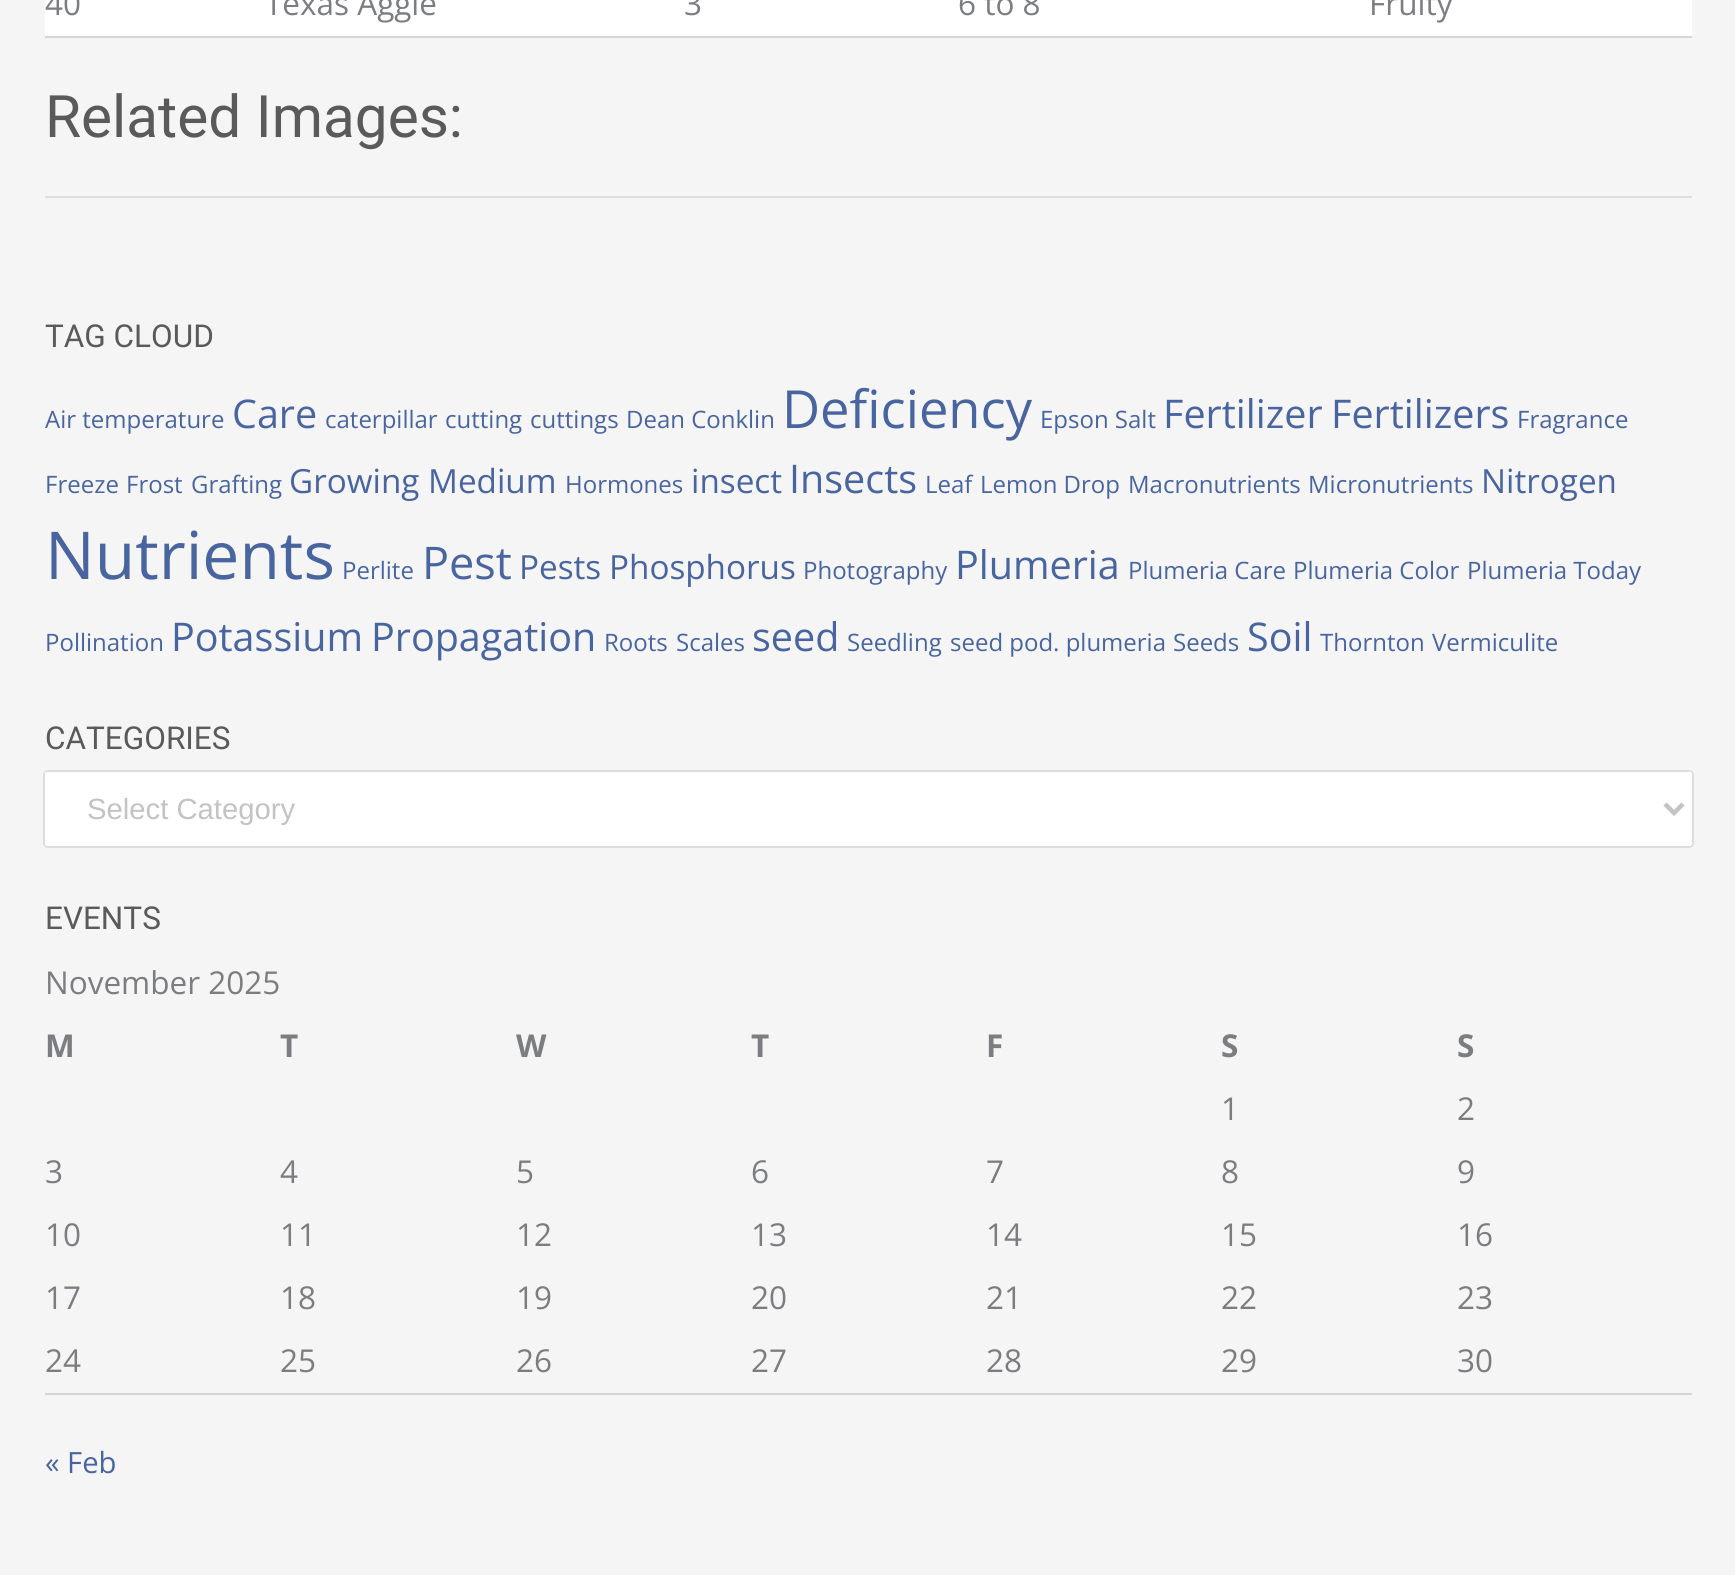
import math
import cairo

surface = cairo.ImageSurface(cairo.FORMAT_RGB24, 1735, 1575)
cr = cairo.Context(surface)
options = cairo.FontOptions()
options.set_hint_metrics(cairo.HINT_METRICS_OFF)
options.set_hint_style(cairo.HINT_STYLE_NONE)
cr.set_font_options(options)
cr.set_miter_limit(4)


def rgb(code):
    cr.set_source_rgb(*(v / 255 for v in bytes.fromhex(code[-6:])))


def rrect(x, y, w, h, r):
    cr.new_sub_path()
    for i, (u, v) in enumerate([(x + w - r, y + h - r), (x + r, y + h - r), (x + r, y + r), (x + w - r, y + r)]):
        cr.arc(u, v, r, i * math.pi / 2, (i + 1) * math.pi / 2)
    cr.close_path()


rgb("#f5f5f5")
cr.paint()
for x, y, w, h, color in [
    (45, 196, 1647, 2, "#dfdfdf"),
    (45, 0, 1647, 36, "#ffffff"),
    (45, 36, 1647, 2, "#d5d5d5"),
]:
    rgb(color)
    cr.rectangle(x, y, w, h)
    cr.fill()
rrect(44, 771, 1649, 76, 4)
rgb("#dddddd")
cr.stroke()
rgb("#ffffff")
rrect(45, 772, 1647, 74, 2)
cr.fill()
cr.new_path()
cr.move_to(1665, 804)
cr.line_to(1674, 813)
cr.line_to(1683, 804)
rgb("#c3c3c3")
cr.set_line_width(4.5)
cr.stroke()
rgb("#d5d5d5")
cr.rectangle(45, 1393, 1647, 2)
cr.fill()
cr.select_font_face("Open Sans")
cr.set_font_size(31.5)
rgb("#7b7d80")
for x, y, s in [
    (45, 15, "40"),
    (265, 15, "Texas Aggie"),
    (684, 15, "3"),
    (958, 15, "6 to 8"),
    (1369, 15, "Fruity"),
]:
    cr.move_to(x, y)
    cr.show_text(s)
cr.select_font_face("Roboto")
cr.set_font_size(58.5)
rgb("#5a5a5a")
cr.move_to(45, 137)
cr.show_text("Related Images:")
cr.set_font_size(31.5)
cr.move_to(45, 347)
cr.show_text("TAG CLOUD")
cr.select_font_face("Open Sans")
cr.set_font_size(24)
rgb("#4965a0")
cr.move_to(45, 428)
cr.show_text("Air temperature")
cr.set_font_size(39.5)
cr.move_to(232, 428)
cr.show_text("Care")
cr.set_font_size(24)
for x, y, s in [
    (325, 428, "caterpillar"),
    (445, 428, "cutting"),
    (530, 428, "cuttings"),
    (626, 428, "Dean Conklin"),
]:
    cr.move_to(x, y)
    cr.show_text(s)
cr.set_font_size(52.5)
cr.move_to(782, 428)
cr.show_text("Deficiency")
cr.set_font_size(24)
cr.move_to(1040, 428)
cr.show_text("Epson Salt")
cr.set_font_size(39.5)
cr.move_to(1163, 428)
cr.show_text("Fertilizer")
cr.move_to(1331, 428)
cr.show_text("Fertilizers")
cr.set_font_size(24)
for x, y, s in [
    (1517, 428, "Fragrance"),
    (45, 493, "Freeze"),
    (126, 493, "Frost"),
    (191, 493, "Grafting"),
]:
    cr.move_to(x, y)
    cr.show_text(s)
cr.set_font_size(33.25)
cr.move_to(289, 493)
cr.show_text("Growing Medium")
cr.set_font_size(24)
cr.move_to(565, 493)
cr.show_text("Hormones")
cr.set_font_size(33.25)
cr.move_to(691, 493)
cr.show_text("insect")
cr.set_font_size(39.5)
cr.move_to(789, 493)
cr.show_text("Insects")
cr.set_font_size(24)
for x, y, s in [
    (925, 493, "Leaf"),
    (980, 493, "Lemon Drop"),
    (1128, 493, "Macronutrients"),
    (1308, 493, "Micronutrients"),
]:
    cr.move_to(x, y)
    cr.show_text(s)
cr.set_font_size(33.25)
cr.move_to(1481, 493)
cr.show_text("Nitrogen")
cr.set_font_size(66)
cr.move_to(45, 579)
cr.show_text("Nutrients")
cr.set_font_size(24)
cr.move_to(342, 579)
cr.show_text("Perlite")
cr.set_font_size(45)
cr.move_to(422, 579)
cr.show_text("Pest")
cr.set_font_size(33.25)
cr.move_to(519, 579)
cr.show_text("Pests")
cr.move_to(609, 579)
cr.show_text("Phosphorus")
cr.set_font_size(24)
cr.move_to(803, 579)
cr.show_text("Photography")
cr.set_font_size(39.5)
cr.move_to(955, 579)
cr.show_text("Plumeria")
cr.set_font_size(24)
for x, y, s in [
    (1128, 579, "Plumeria Care"),
    (1293, 579, "Plumeria Color"),
    (1467, 579, "Plumeria Today"),
    (45, 651, "Pollination"),
]:
    cr.move_to(x, y)
    cr.show_text(s)
cr.set_font_size(39.5)
cr.move_to(171, 651)
cr.show_text("Potassium")
cr.move_to(371, 651)
cr.show_text("Propagation")
cr.set_font_size(24)
cr.move_to(604, 651)
cr.show_text("Roots")
cr.move_to(676, 651)
cr.show_text("Scales")
cr.set_font_size(39.5)
cr.move_to(752, 651)
cr.show_text("seed")
cr.set_font_size(24)
for x, y, s in [
    (847, 651, "Seedling"),
    (950, 651, "seed pod. plumeria"),
    (1173, 651, "Seeds"),
]:
    cr.move_to(x, y)
    cr.show_text(s)
cr.set_font_size(39.5)
cr.move_to(1247, 651)
cr.show_text("Soil")
cr.set_font_size(24)
cr.move_to(1320, 651)
cr.show_text("Thornton")
cr.move_to(1432, 651)
cr.show_text("Vermiculite")
cr.select_font_face("Roboto")
cr.set_font_size(31.5)
rgb("#5a5a5a")
cr.move_to(45, 749)
cr.show_text("CATEGORIES")
cr.select_font_face("Liberation Sans")
cr.set_font_size(29.25)
rgb("#c3c3c3")
cr.move_to(87, 819)
cr.show_text("Select Category")
cr.select_font_face("Roboto")
cr.set_font_size(31.5)
rgb("#5a5a5a")
cr.move_to(45, 929)
cr.show_text("EVENTS")
cr.select_font_face("Open Sans")
rgb("#7b7d80")
cr.move_to(45, 994)
cr.show_text("November 2025")
cr.select_font_face("Open Sans", cairo.FONT_SLANT_NORMAL, cairo.FONT_WEIGHT_BOLD)
for x, y, s in [
    (45, 1057, "M"),
    (280, 1057, "T"),
    (516, 1057, "W"),
    (751, 1057, "T"),
    (986, 1057, "F"),
    (1221, 1057, "S"),
    (1457, 1057, "S"),
]:
    cr.move_to(x, y)
    cr.show_text(s)
cr.select_font_face("Open Sans")
for x, y, s in [
    (1221, 1120, "1"),
    (1457, 1120, "2"),
    (45, 1183, "3"),
    (280, 1183, "4"),
    (516, 1183, "5"),
    (751, 1183, "6"),
    (986, 1183, "7"),
    (1221, 1183, "8"),
    (1457, 1183, "9"),
    (45, 1246, "10"),
    (280, 1246, "11"),
    (516, 1246, "12"),
    (751, 1246, "13"),
    (986, 1246, "14"),
    (1221, 1246, "15"),
    (1457, 1246, "16"),
    (45, 1309, "17"),
    (280, 1309, "18"),
    (516, 1309, "19"),
    (751, 1309, "20"),
    (986, 1309, "21"),
    (1221, 1309, "22"),
    (1457, 1309, "23"),
    (45, 1372, "24"),
    (280, 1372, "25"),
    (516, 1372, "26"),
    (751, 1372, "27"),
    (986, 1372, "28"),
    (1221, 1372, "29"),
    (1457, 1372, "30"),
]:
    cr.move_to(x, y)
    cr.show_text(s)
cr.set_font_size(29.25)
rgb("#4965a0")
cr.move_to(45, 1473)
cr.show_text("« Feb")
surface.write_to_png("page.png")
